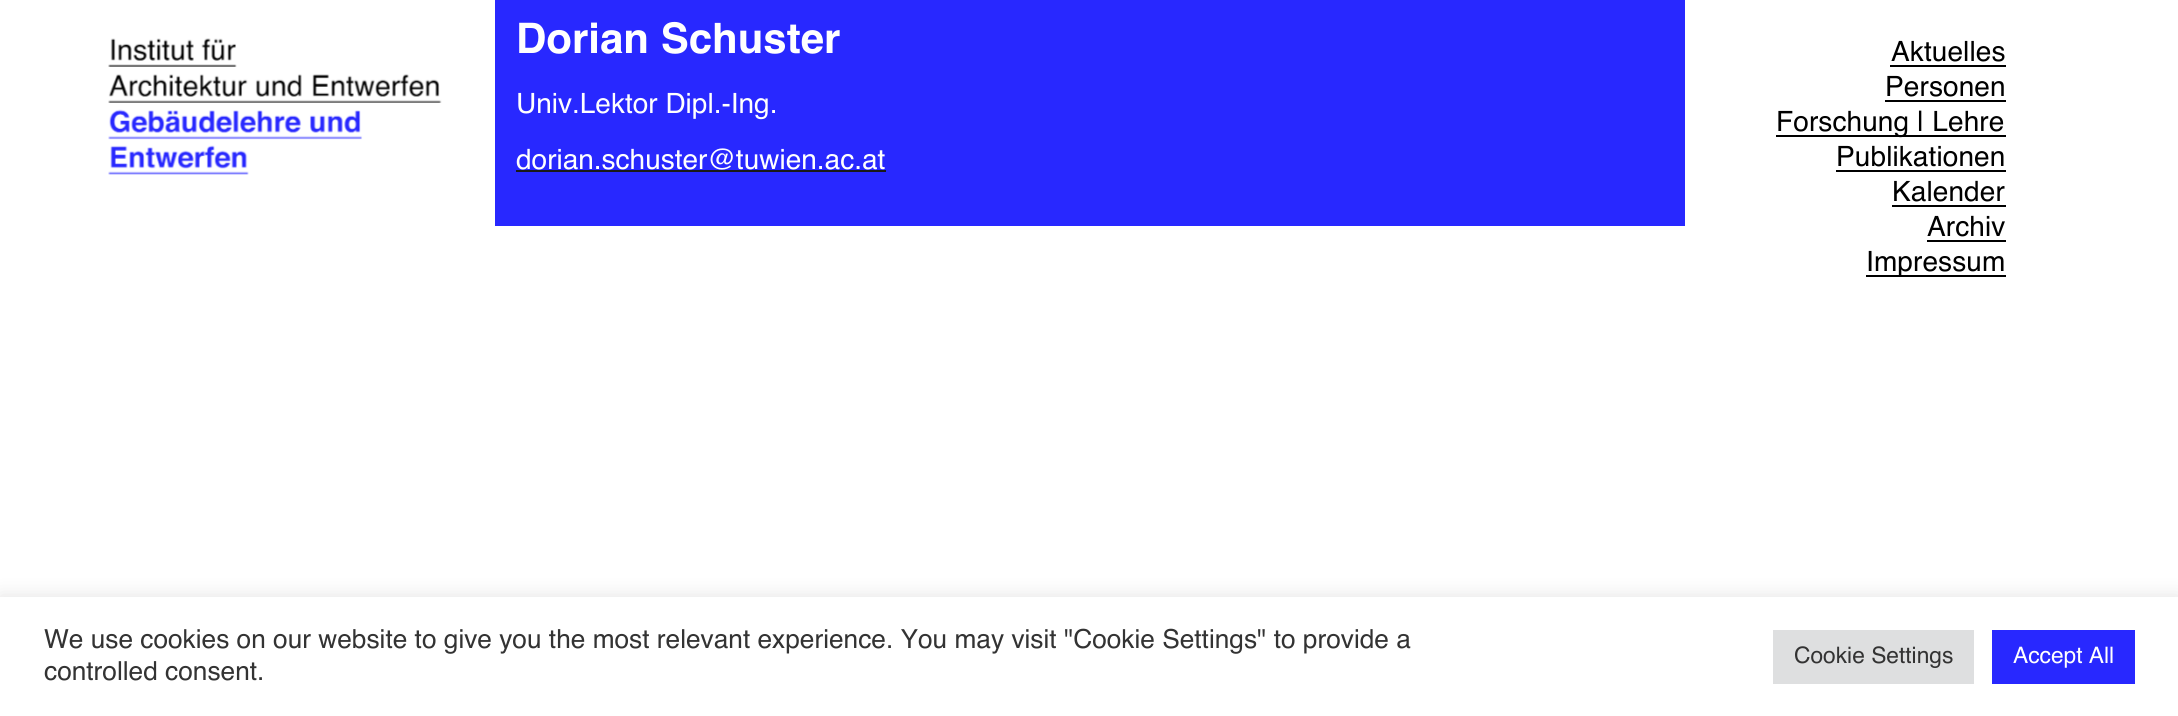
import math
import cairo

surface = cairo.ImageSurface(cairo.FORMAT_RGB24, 2178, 716)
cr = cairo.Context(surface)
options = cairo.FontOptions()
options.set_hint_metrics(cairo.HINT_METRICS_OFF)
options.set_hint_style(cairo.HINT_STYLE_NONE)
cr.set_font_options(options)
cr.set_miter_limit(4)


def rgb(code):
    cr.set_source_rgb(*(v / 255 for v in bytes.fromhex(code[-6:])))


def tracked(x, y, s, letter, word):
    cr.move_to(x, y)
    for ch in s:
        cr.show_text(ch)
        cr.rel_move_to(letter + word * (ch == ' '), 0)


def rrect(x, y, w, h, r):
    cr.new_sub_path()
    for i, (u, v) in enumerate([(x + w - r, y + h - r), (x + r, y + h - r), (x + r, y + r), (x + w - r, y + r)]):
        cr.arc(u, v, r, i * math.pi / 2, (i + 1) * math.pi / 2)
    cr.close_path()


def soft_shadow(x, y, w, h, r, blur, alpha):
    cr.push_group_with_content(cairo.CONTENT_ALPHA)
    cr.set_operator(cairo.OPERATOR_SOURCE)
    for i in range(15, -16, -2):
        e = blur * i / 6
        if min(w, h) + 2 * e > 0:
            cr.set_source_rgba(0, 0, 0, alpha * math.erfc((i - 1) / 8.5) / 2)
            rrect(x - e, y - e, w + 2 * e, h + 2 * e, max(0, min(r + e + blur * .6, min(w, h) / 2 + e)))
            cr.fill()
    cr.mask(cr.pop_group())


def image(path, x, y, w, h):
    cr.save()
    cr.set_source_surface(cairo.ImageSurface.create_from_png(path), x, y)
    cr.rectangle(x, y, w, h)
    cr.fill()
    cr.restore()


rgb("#ffffff")
cr.paint()
image("img/1.png", 108, 38, 334, 137)
for x, y, w, h, color in [
    (495, 0, 1190, 226, "#2828ff"),
    (516, 170, 370, 2, "#191919"),
    (1890, 65, 116, 2, "#000000"),
    (1885, 100, 121, 2, "#000000"),
    (1776, 135, 230, 2, "#000000"),
    (1836, 170, 170, 2, "#000000"),
    (1892, 205, 114, 2, "#000000"),
    (1927, 240, 79, 2, "#000000"),
    (1866, 275, 140, 2, "#000000"),
]:
    rgb(color)
    cr.rectangle(x, y, w, h)
    cr.fill()
rgb("#acabab")
soft_shadow(0, 595, 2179, 121, 0, 9, 0.3)
for x, y, w, h, color in [
    (0, 597, 2178, 119, "#ffffff"),
    (1773, 630, 201, 54, "#dedfe0"),
    (1992, 630, 143, 54, "#2828ff"),
]:
    rgb(color)
    cr.rectangle(x, y, w, h)
    cr.fill()
cr.select_font_face("Helvetica", cairo.FONT_SLANT_NORMAL, cairo.FONT_WEIGHT_BOLD)
cr.set_font_size(42)
rgb("#ffffff")
cr.move_to(516, 53)
cr.show_text("Dorian Schuster")
cr.select_font_face("Helvetica")
cr.set_font_size(28)
cr.move_to(516, 113)
cr.show_text("Univ.Lektor Dipl.-Ing.")
cr.move_to(516, 169)
cr.show_text("dorian.schuster@tuwien.ac.at")
rgb("#000000")
for x, y, s in [
    (1891, 61, "Aktuelles"),
    (1885, 96, "Personen"),
    (1776, 131, "Forschung | Lehre"),
    (1836, 166, "Publikationen"),
    (1892, 201, "Kalender"),
    (1927, 236, "Archiv"),
    (1866, 271, "Impressum"),
]:
    tracked(x, y, s, 0.1, 0)
cr.set_font_size(26.25)
rgb("#333333")
cr.move_to(44, 648)
cr.show_text("We use cookies on our website to give you the most relevant experience. You may visit \"Cookie Settings\" to provide a")
cr.move_to(44, 680)
cr.show_text("controlled consent.")
cr.set_font_size(22.75)
cr.move_to(1794, 663)
cr.show_text("Cookie Settings")
rgb("#ffffff")
cr.move_to(2013, 663)
cr.show_text("Accept All")
surface.write_to_png("page.png")
